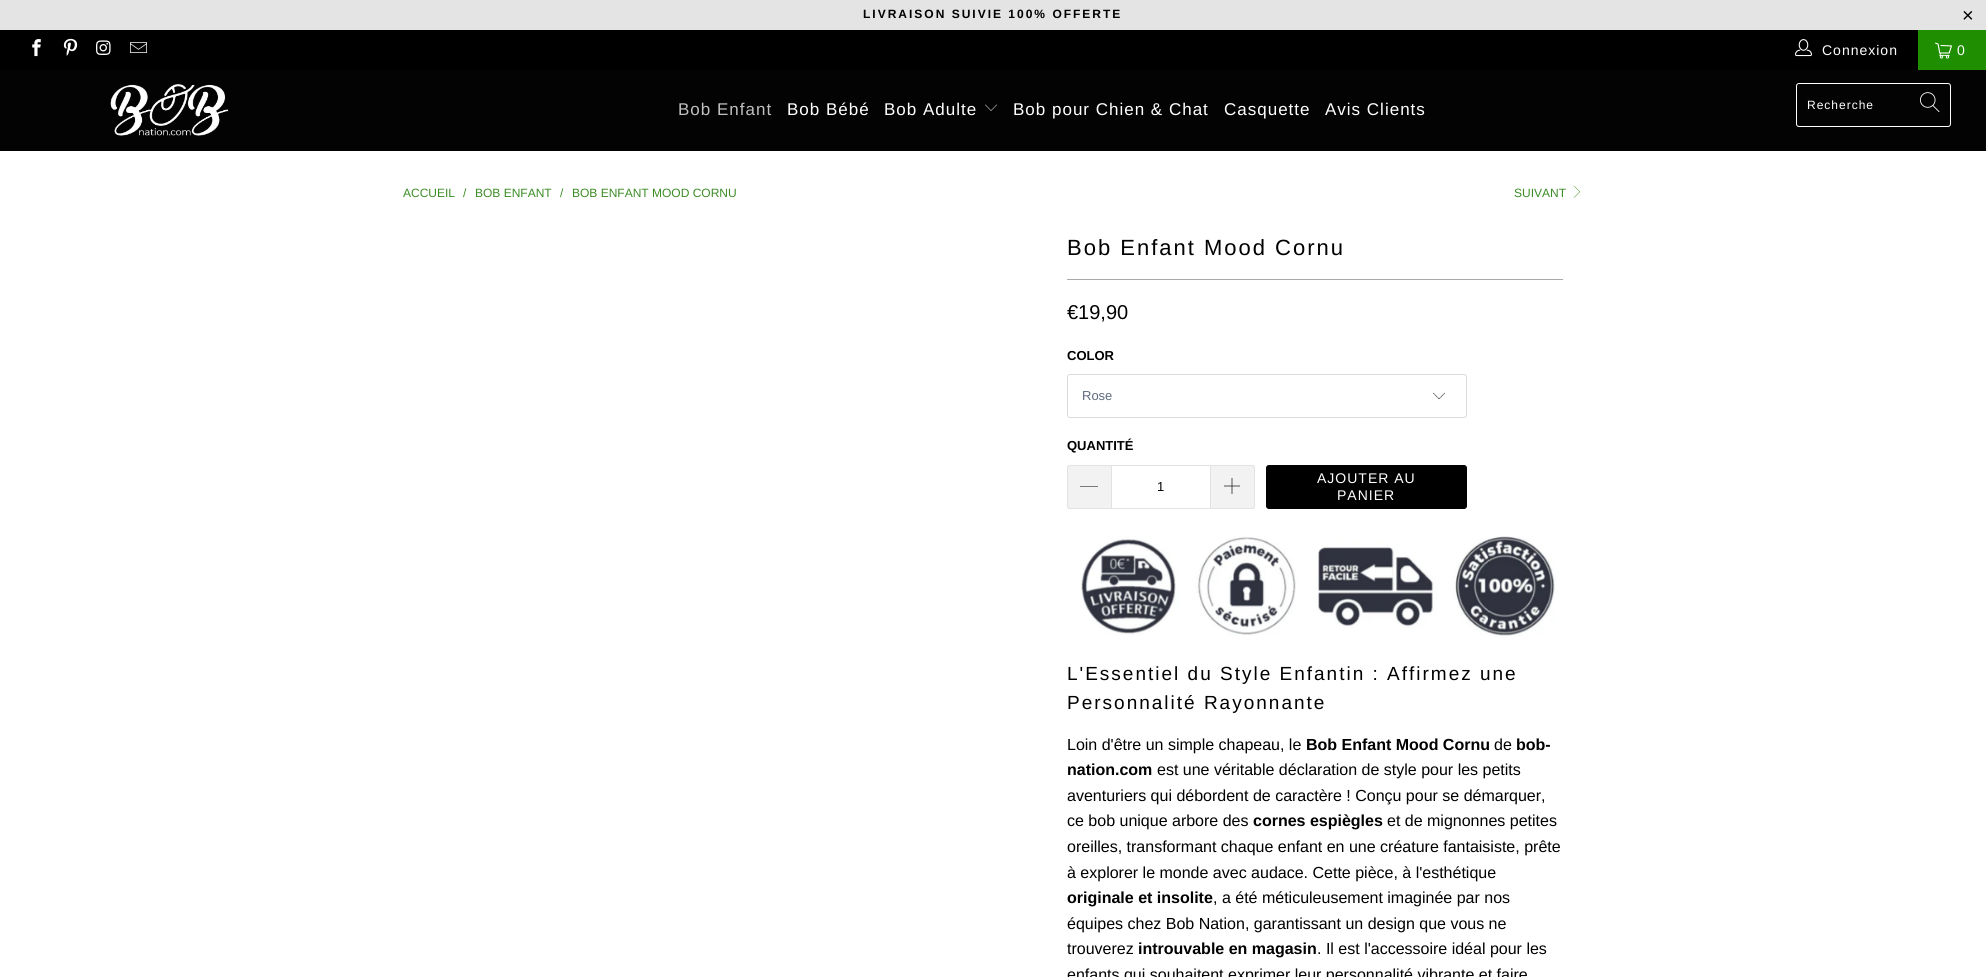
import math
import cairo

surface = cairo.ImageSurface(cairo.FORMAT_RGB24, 1986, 977)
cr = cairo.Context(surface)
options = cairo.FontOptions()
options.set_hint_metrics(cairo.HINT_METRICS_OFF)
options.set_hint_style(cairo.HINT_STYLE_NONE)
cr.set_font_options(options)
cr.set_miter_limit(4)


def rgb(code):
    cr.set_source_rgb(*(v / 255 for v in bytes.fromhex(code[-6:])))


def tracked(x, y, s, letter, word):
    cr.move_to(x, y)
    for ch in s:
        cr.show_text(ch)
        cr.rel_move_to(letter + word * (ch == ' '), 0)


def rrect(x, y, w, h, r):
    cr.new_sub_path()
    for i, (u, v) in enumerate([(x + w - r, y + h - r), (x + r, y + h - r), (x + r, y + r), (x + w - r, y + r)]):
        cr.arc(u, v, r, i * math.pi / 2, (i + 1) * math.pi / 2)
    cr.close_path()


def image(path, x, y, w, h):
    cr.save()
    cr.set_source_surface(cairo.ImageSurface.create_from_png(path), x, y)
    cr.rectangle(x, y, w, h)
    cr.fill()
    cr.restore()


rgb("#ffffff")
cr.paint()
rgb("#e4e4e4")
cr.rectangle(0, 0, 1986, 30)
cr.fill()
rgb("#000000")
cr.rectangle(0, 30, 1918, 40)
cr.fill()
image("img/1.png", 32, 39, 9, 18)
image("img/2.png", 63, 38, 15, 18)
image("img/3.png", 96, 40, 15, 15)
image("img/4.png", 130, 42, 17, 11)
image("img/5.png", 1795, 39, 17, 18)
rgb("#1f8e00")
cr.rectangle(1918, 30, 68, 40)
cr.fill()
image("img/6.png", 1935, 42, 17, 17)
rgb("#030303")
cr.rectangle(0, 70, 1986, 81)
cr.fill()
image("img/7.png", 110, 84, 119, 52)
image("img/8.png", 985, 104, 12, 7)
rrect(1796.5, 83.5, 154, 43, 2.5)
rgb("#ffffff")
cr.set_line_width(1)
cr.stroke()
image("img/9.png", 1920, 92, 20, 21)
image("img/10.png", 1573, 185, 8, 13)
rgb("#aaaaaa")
cr.rectangle(1067, 279, 496, 1)
cr.fill()
image("img/11.png", 1433, 392, 12, 8)
rrect(1067.5, 374.5, 399, 43, 2.5)
rgb("#d9dbdc")
cr.stroke()
rgb("#f2f2f2")
cr.new_path()
cr.move_to(1070, 465)
cr.line_to(1111, 465)
cr.line_to(1111, 509)
cr.line_to(1070, 509)
cr.curve_to(1068.5, 509, 1067, 507.5, 1067, 506)
cr.line_to(1067, 468)
cr.curve_to(1067, 466.5, 1068.5, 465, 1070, 465)
cr.close_path()
cr.fill()
rgb("#e2e2e2")
cr.set_fill_rule(cairo.FILL_RULE_EVEN_ODD)
cr.new_path()
cr.move_to(1070, 465)
cr.line_to(1111, 465)
cr.line_to(1111, 509)
cr.line_to(1070, 509)
cr.curve_to(1068, 509, 1067, 508, 1067, 506)
cr.line_to(1067, 468)
cr.curve_to(1067, 466, 1068, 465, 1070, 465)
cr.close_path()
cr.move_to(1070, 466)
cr.line_to(1111, 466)
cr.line_to(1111, 508)
cr.line_to(1070, 508)
cr.curve_to(1069, 508, 1068, 507, 1068, 506)
cr.line_to(1068, 468)
cr.curve_to(1068, 467, 1069, 466, 1070, 466)
cr.close_path()
cr.fill()
rgb("#000000")
cr.set_fill_rule(cairo.FILL_RULE_WINDING)
cr.new_path()
cr.move_to(1080, 486)
cr.line_to(1098, 486)
cr.line_to(1098, 486.5)
cr.line_to(1080, 486.5)
cr.close_path()
cr.fill()
cr.rectangle(1111.5, 465.5, 99, 43)
rgb("#e2e2e2")
cr.stroke()
rgb("#f2f2f2")
cr.new_path()
cr.move_to(1211, 465)
cr.line_to(1252, 465)
cr.curve_to(1253.5, 465, 1255, 466.5, 1255, 468)
cr.line_to(1255, 506)
cr.curve_to(1255, 507.5, 1253.5, 509, 1252, 509)
cr.line_to(1211, 509)
cr.close_path()
cr.fill()
rgb("#e2e2e2")
cr.set_fill_rule(cairo.FILL_RULE_EVEN_ODD)
cr.new_path()
cr.move_to(1211, 465)
cr.line_to(1252, 465)
cr.curve_to(1254, 465, 1255, 466, 1255, 468)
cr.line_to(1255, 506)
cr.curve_to(1255, 508, 1254, 509, 1252, 509)
cr.line_to(1211, 509)
cr.close_path()
cr.move_to(1211, 466)
cr.line_to(1252, 466)
cr.curve_to(1253, 466, 1254, 467, 1254, 468)
cr.line_to(1254, 506)
cr.curve_to(1254, 507, 1253, 508, 1252, 508)
cr.line_to(1211, 508)
cr.close_path()
cr.fill()
image("img/12.png", 1224, 478, 16, 16)
rgb("#000000")
rrect(1266.5, 465.5, 200, 43, 2.5)
cr.fill_preserve()
cr.stroke()
image("img/13.png", 1067, 529, 496, 116)
cr.select_font_face("Arimo", cairo.FONT_SLANT_NORMAL, cairo.FONT_WEIGHT_BOLD)
cr.set_font_size(12)
tracked(863, 18, "LIVRAISON SUIVIE 100% OFFERTE", 2, 0)
cr.select_font_face("Liberation Sans")
cr.set_font_size(20)
tracked(1962, 22, "×", 2, 0)
cr.select_font_face("Arimo")
cr.set_font_size(14)
rgb("#ffffff")
tracked(1822, 55, "Connexion", 1, 0)
tracked(1957, 55, "0", 1, 0)
cr.set_font_size(17)
rgb("#c0bfbf")
tracked(678, 115, "Bob Enfant", 1, 0)
rgb("#ffffff")
for x, y, s in [
    (787, 115, "Bob Bébé"),
    (884, 115, "Bob Adulte"),
    (1013, 115, "Bob pour Chien & Chat"),
    (1224, 115, "Casquette"),
    (1325, 115, "Avis Clients"),
]:
    tracked(x, y, s, 1, 0)
cr.set_font_size(12)
tracked(1807, 109, "Recherche", 1, 0)
rgb("#3b8c25")
for x, y, s in [
    (403, 197, "ACCUEIL"),
    (463, 197, "/"),
    (475, 197, "BOB ENFANT"),
    (560, 197, "/"),
    (572, 197, "BOB ENFANT MOOD CORNU"),
    (1514, 197, "SUIVANT"),
]:
    cr.move_to(x, y)
    cr.show_text(s)
cr.set_font_size(22)
rgb("#000000")
tracked(1067, 255, "Bob Enfant Mood Cornu", 2, 0)
cr.set_font_size(20)
cr.move_to(1067, 319)
cr.show_text("€19,90")
cr.select_font_face("Arimo", cairo.FONT_SLANT_NORMAL, cairo.FONT_WEIGHT_BOLD)
cr.set_font_size(13)
cr.move_to(1067, 360)
cr.show_text("COLOR")
cr.select_font_face("Liberation Sans")
rgb("#5f6a7d")
cr.move_to(1082, 400)
cr.show_text("Rose")
cr.select_font_face("Arimo", cairo.FONT_SLANT_NORMAL, cairo.FONT_WEIGHT_BOLD)
rgb("#000000")
cr.move_to(1067, 450)
cr.show_text("QUANTITÉ")
cr.select_font_face("Liberation Sans")
cr.move_to(1157, 491)
cr.show_text("1")
cr.select_font_face("Arimo")
cr.set_font_size(14)
rgb("#ffffff")
tracked(1317, 483, "AJOUTER AU", 1, 0)
tracked(1337, 500, "PANIER", 1, 0)
cr.set_font_size(19)
rgb("#000000")
tracked(1067, 680, "L'Essentiel du Style Enfantin : Affirmez une", 2, 0)
tracked(1067, 709, "Personnalité Rayonnante", 2, 0)
cr.set_font_size(16)
cr.move_to(1067, 750)
cr.show_text("Loin d'être un simple chapeau, le")
cr.select_font_face("Arimo", cairo.FONT_SLANT_NORMAL, cairo.FONT_WEIGHT_BOLD)
cr.move_to(1306, 750)
cr.show_text("Bob Enfant Mood Cornu")
cr.select_font_face("Arimo")
cr.move_to(1494, 750)
cr.show_text("de")
cr.select_font_face("Arimo", cairo.FONT_SLANT_NORMAL, cairo.FONT_WEIGHT_BOLD)
cr.move_to(1516, 750)
cr.show_text("bob-")
cr.move_to(1067, 775)
cr.show_text("nation.com")
cr.select_font_face("Arimo")
for x, y, s in [
    (1157, 775, "est une véritable déclaration de style pour les petits"),
    (1067, 801, "aventuriers qui débordent de caractère ! Conçu pour se démarquer,"),
    (1067, 826, "ce bob unique arbore des"),
]:
    cr.move_to(x, y)
    cr.show_text(s)
cr.select_font_face("Arimo", cairo.FONT_SLANT_NORMAL, cairo.FONT_WEIGHT_BOLD)
cr.move_to(1253, 826)
cr.show_text("cornes espiègles")
cr.select_font_face("Arimo")
for x, y, s in [
    (1387, 826, "et de mignonnes petites"),
    (1067, 852, "oreilles, transformant chaque enfant en une créature fantaisiste, prête"),
    (1067, 878, "à explorer le monde avec audace. Cette pièce, à l'esthétique"),
]:
    cr.move_to(x, y)
    cr.show_text(s)
cr.select_font_face("Arimo", cairo.FONT_SLANT_NORMAL, cairo.FONT_WEIGHT_BOLD)
cr.move_to(1067, 903)
cr.show_text("originale et insolite")
cr.select_font_face("Arimo")
for x, y, s in [
    (1213, 903, ", a été méticuleusement imaginée par nos"),
    (1067, 929, "équipes chez Bob Nation, garantissant un design que vous ne"),
    (1067, 954, "trouverez"),
]:
    cr.move_to(x, y)
    cr.show_text(s)
cr.select_font_face("Arimo", cairo.FONT_SLANT_NORMAL, cairo.FONT_WEIGHT_BOLD)
cr.move_to(1138, 954)
cr.show_text("introuvable en magasin")
cr.select_font_face("Arimo")
cr.move_to(1317, 954)
cr.show_text(". Il est l'accessoire idéal pour les")
cr.move_to(1067, 980)
cr.show_text("enfants qui souhaitent exprimer leur personnalité vibrante et faire")
surface.write_to_png("page.png")
